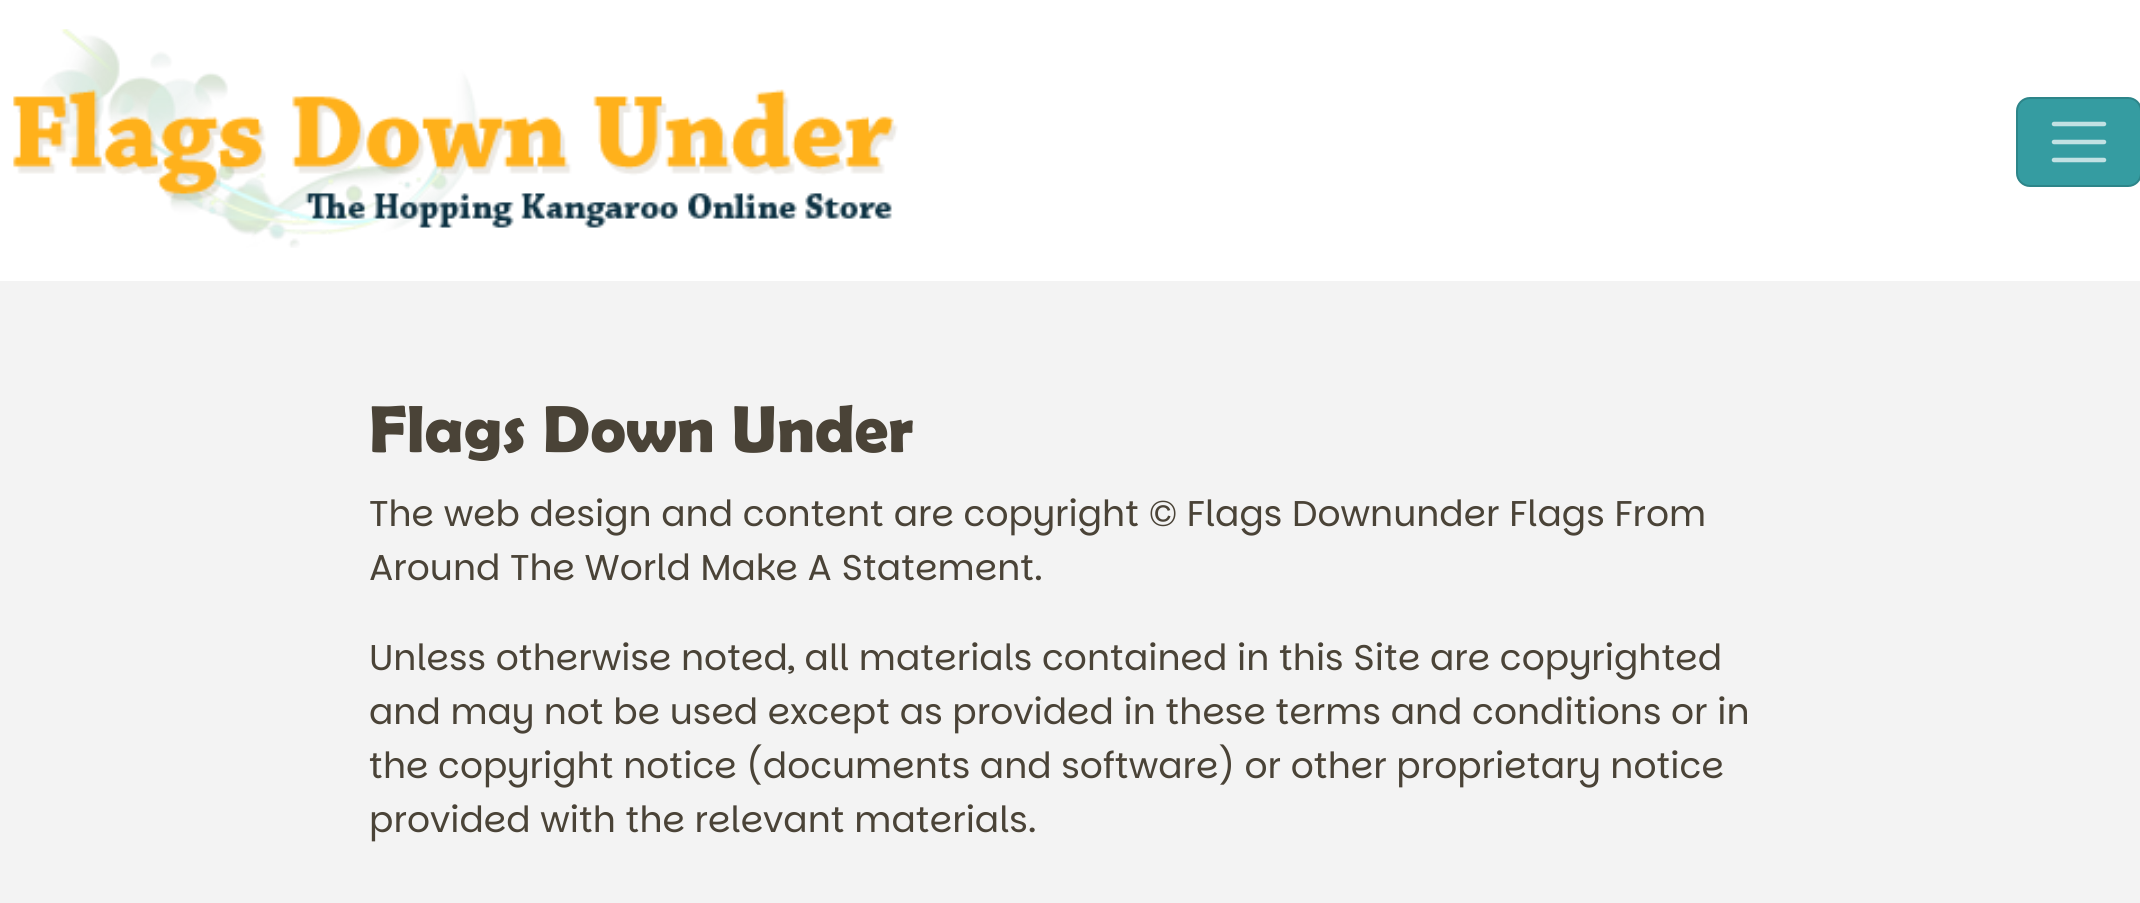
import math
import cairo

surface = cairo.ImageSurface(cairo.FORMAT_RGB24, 2140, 903)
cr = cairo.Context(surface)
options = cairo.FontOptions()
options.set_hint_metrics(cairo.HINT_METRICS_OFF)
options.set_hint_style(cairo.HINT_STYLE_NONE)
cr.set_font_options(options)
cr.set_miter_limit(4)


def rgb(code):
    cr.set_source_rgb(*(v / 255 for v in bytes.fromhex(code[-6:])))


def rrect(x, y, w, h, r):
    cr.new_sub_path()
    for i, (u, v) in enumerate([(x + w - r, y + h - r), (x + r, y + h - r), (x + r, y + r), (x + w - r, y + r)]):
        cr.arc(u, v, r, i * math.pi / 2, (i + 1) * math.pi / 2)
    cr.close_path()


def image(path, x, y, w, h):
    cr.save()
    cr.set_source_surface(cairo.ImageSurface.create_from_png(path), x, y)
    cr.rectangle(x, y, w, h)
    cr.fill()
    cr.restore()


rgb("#ffffff")
cr.paint()
image("img/1.png", 13, 29, 885, 219)
rgb("#359ca1")
rrect(2016, 97, 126, 90, 14)
cr.fill()
rrect(2017, 98, 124, 88, 13)
cr.set_source_rgba(0, 0, 0, 0.15)
cr.stroke()
cr.new_path()
cr.move_to(2054, 124)
cr.line_to(2104, 124)
cr.move_to(2054, 142)
cr.line_to(2104, 142)
cr.move_to(2054, 160)
cr.line_to(2104, 160)
rgb("#c2e1e3")
cr.set_line_width(4.5)
cr.set_line_cap(cairo.LINE_CAP_ROUND)
cr.stroke()
rgb("#f3f3f3")
cr.rectangle(0, 281, 2140, 622)
cr.fill()
cr.select_font_face("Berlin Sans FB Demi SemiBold")
cr.set_font_size(67)
rgb("#4a4337")
cr.move_to(369, 452)
cr.show_text("Flags Down Under")
cr.select_font_face("Parkinsans")
cr.set_font_size(36)
for x, y, s in [
    (369, 526, "The web design and content are copyright © Flags Downunder Flags From"),
    (369, 580, "Around The World Make A Statement."),
    (369, 670, "Unless otherwise noted, all materials contained in this Site are copyrighted"),
    (369, 724, "and may not be used except as provided in these terms and conditions or in"),
    (369, 778, "the copyright notice (documents and software) or other proprietary notice"),
    (369, 832, "provided with the relevant materials."),
]:
    cr.move_to(x, y)
    cr.show_text(s)
surface.write_to_png("page.png")
